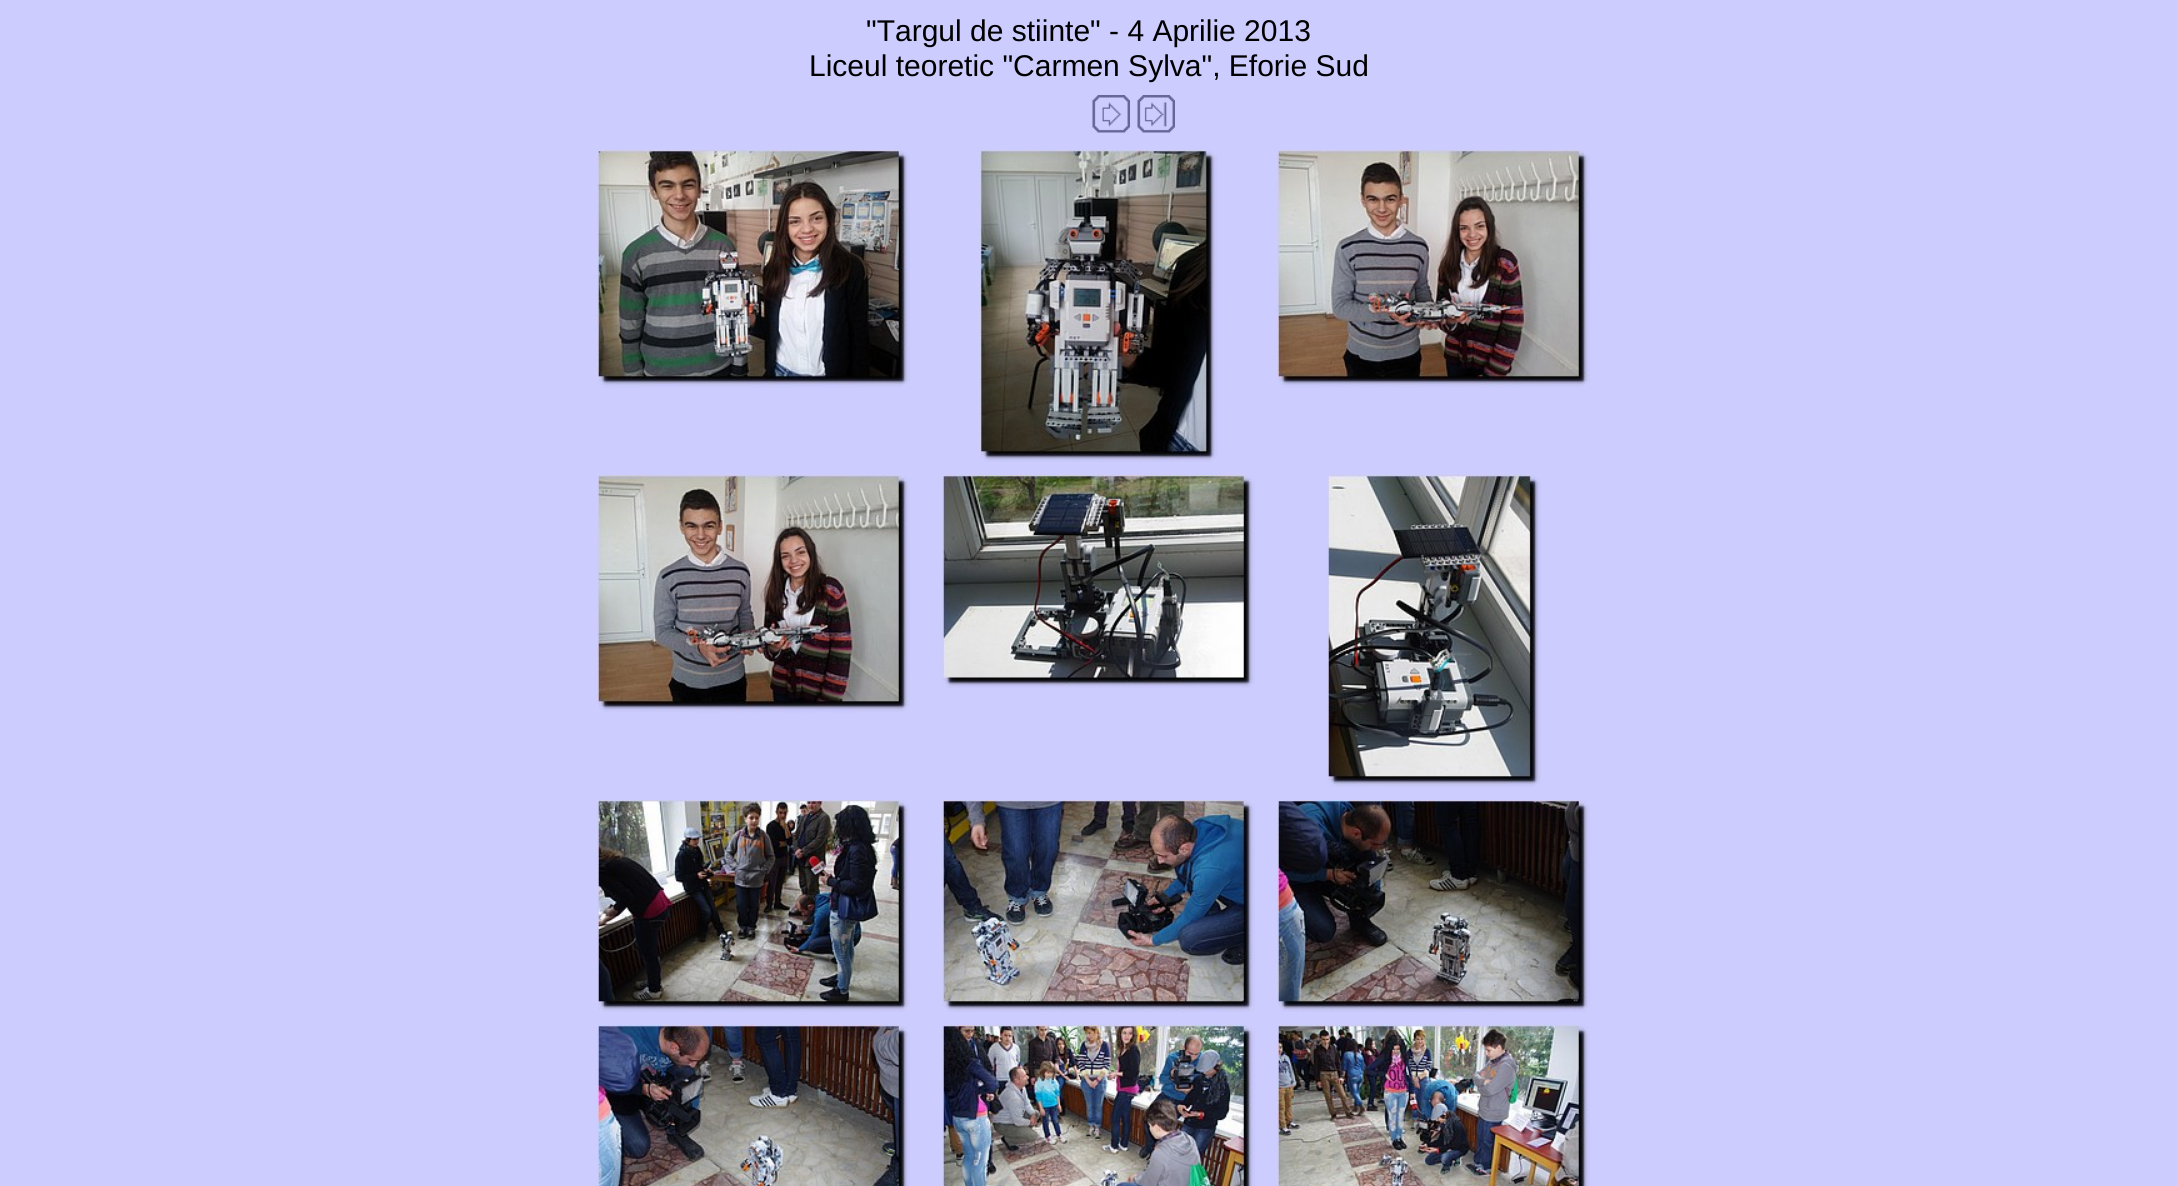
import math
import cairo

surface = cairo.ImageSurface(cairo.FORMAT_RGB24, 2177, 1186)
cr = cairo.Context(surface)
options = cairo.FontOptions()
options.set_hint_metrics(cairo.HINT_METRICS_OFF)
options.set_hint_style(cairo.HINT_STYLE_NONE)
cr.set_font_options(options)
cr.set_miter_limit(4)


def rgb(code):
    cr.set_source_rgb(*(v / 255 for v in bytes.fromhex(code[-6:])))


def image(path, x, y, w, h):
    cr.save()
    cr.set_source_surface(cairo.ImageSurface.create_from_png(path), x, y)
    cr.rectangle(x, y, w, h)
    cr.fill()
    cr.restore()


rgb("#ccccff")
cr.paint()
image("img/1.png", 1092, 95, 38, 38)
image("img/2.png", 1137, 95, 38, 38)
image("img/3.png", 597, 150, 313, 238)
image("img/4.png", 980, 150, 238, 312)
image("img/5.png", 1277, 150, 313, 238)
image("img/6.png", 597, 475, 313, 238)
image("img/7.png", 942, 475, 313, 213)
image("img/8.png", 1327, 475, 214, 312)
image("img/9.png", 597, 800, 313, 212)
image("img/10.png", 942, 800, 313, 212)
image("img/11.png", 1277, 800, 313, 212)
image("img/12.png", 597, 1025, 313, 161)
image("img/13.png", 942, 1025, 313, 161)
image("img/14.png", 1277, 1025, 313, 161)
cr.select_font_face("Liberation Sans")
cr.set_font_size(30)
rgb("#000000")
cr.move_to(866, 41)
cr.show_text("\"Targul de stiinte\" - 4 Aprilie 2013")
cr.move_to(809, 76)
cr.show_text("Liceul teoretic \"Carmen Sylva\", Eforie Sud")
surface.write_to_png("page.png")
